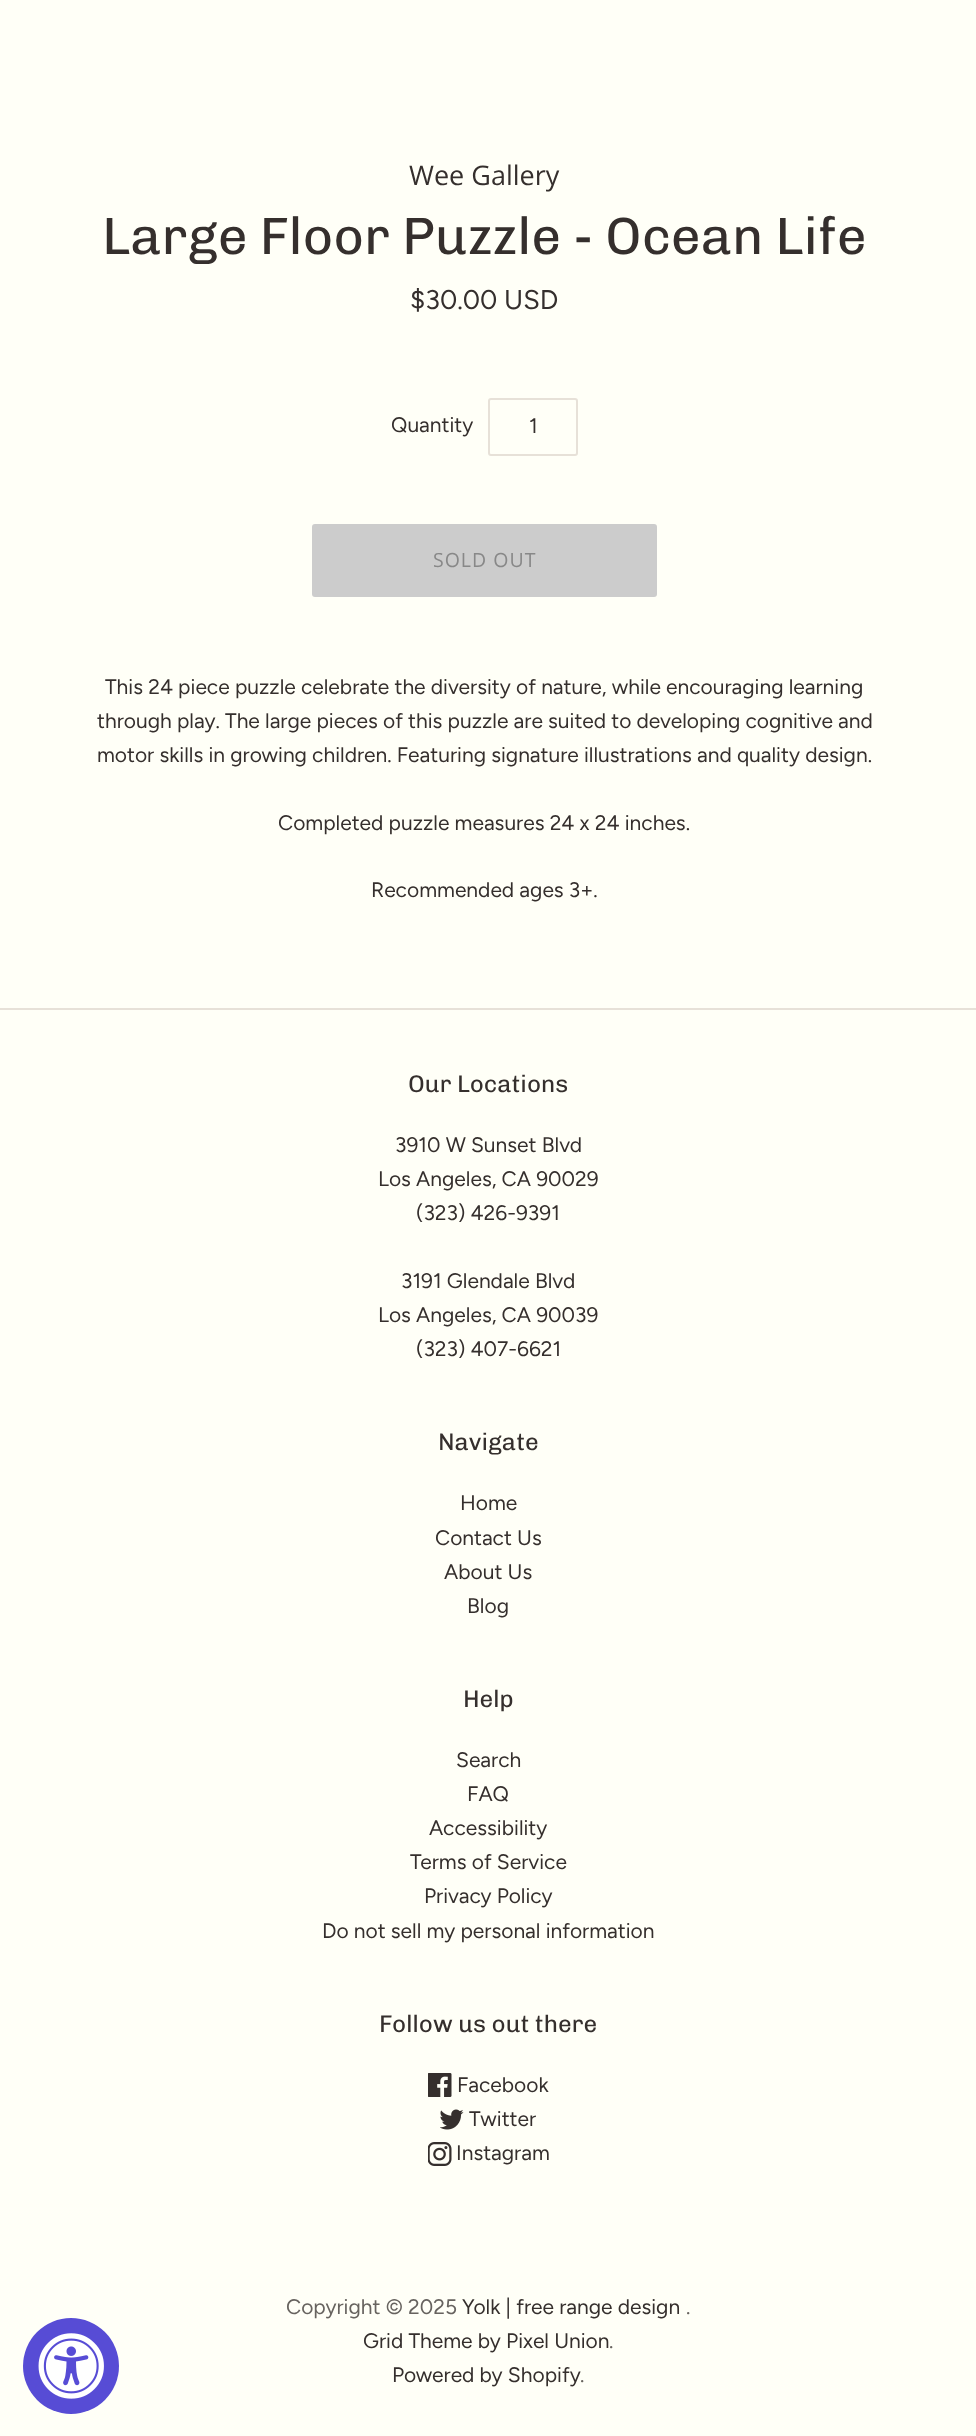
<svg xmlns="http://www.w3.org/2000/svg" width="976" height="2436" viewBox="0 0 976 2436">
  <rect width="100%" height="100%" fill="#fffff7"/>
  <text x="409" y="185" font-family="Open Sans" font-size="27" fill="#352f2d">Wee Gallery</text>
  <text x="102" y="254" font-family="Chivo" font-size="52.5" fill="#352f2d">Large Floor Puzzle - Ocean Life</text>
  <text x="410" y="309" font-family="Figtree" font-size="27" fill="#352f2d">$30.00 USD</text>
  <text x="391" y="432" font-family="Figtree" font-size="21" fill="#352f2d">Quantity</text>
  <rect x="489" y="399" width="88" height="56" rx="2" fill="none" stroke="#e7e1d8" stroke-width="2"/>
  <text x="529" y="433" font-family="Figtree" font-size="21" fill="#352f2d">1</text>
  <rect x="312" y="524" width="345" height="73" rx="3" fill="#cccccc"/>
  <text x="433" y="567" font-family="Open Sans" font-size="19.5" letter-spacing="1" fill="#888888">SOLD OUT</text>
  <text x="105" y="694" font-family="Figtree" font-size="21" fill="#352f2d">This 24 piece puzzle celebrate the diversity of nature, while encouraging learning</text>
  <text x="97" y="728" font-family="Figtree" font-size="21" fill="#352f2d">through play. The large pieces of this puzzle are suited to developing cognitive and</text>
  <text x="97" y="762" font-family="Figtree" font-size="21" fill="#352f2d">motor skills in growing children. Featuring signature illustrations and quality design.</text>
  <text x="278" y="830" font-family="Figtree" font-size="21" fill="#352f2d">Completed puzzle measures 24 x 24 inches.</text>
  <text x="371" y="897" font-family="Figtree" font-size="21" fill="#352f2d">Recommended ages 3+.</text>
  <circle cx="71" cy="2366" r="48" fill="#574cd5"/>
  <image x="38" y="2333" width="66" height="66" href="img1.png"/>
  <rect x="0" y="1008" width="976" height="2" fill="#e7e1d8"/>
  <text x="408" y="1092" font-family="Chivo" font-size="24" fill="#352f2d">Our Locations</text>
  <text x="395" y="1152" font-family="Figtree" font-size="21" fill="#352f2d">3910 W Sunset Blvd</text>
  <text x="378" y="1186" font-family="Figtree" font-size="21" fill="#352f2d">Los Angeles, CA 90029</text>
  <text x="416" y="1220" font-family="Figtree" font-size="21" fill="#352f2d">(323) 426-9391</text>
  <text x="401" y="1288" font-family="Figtree" font-size="21" fill="#352f2d">3191 Glendale Blvd</text>
  <text x="378" y="1322" font-family="Figtree" font-size="21" fill="#352f2d">Los Angeles, CA 90039</text>
  <text x="416" y="1356" font-family="Figtree" font-size="21" fill="#352f2d">(323) 407-6621</text>
  <text x="438" y="1450" font-family="Chivo" font-size="24" fill="#352f2d">Navigate</text>
  <text x="460" y="1510" font-family="Figtree" font-size="21" fill="#352f2d">Home</text>
  <text x="435" y="1545" font-family="Figtree" font-size="21" fill="#352f2d">Contact Us</text>
  <text x="444" y="1579" font-family="Figtree" font-size="21" fill="#352f2d">About Us</text>
  <text x="467" y="1613" font-family="Figtree" font-size="21" fill="#352f2d">Blog</text>
  <text x="463" y="1707" font-family="Chivo" font-size="24" fill="#352f2d">Help</text>
  <text x="456" y="1767" font-family="Figtree" font-size="21" fill="#352f2d">Search</text>
  <text x="467" y="1801" font-family="Figtree" font-size="21" fill="#352f2d">FAQ</text>
  <text x="429" y="1835" font-family="Figtree" font-size="21" fill="#352f2d">Accessibility</text>
  <text x="410" y="1869" font-family="Figtree" font-size="21" fill="#352f2d">Terms of Service</text>
  <text x="424" y="1903" font-family="Figtree" font-size="21" fill="#352f2d">Privacy Policy</text>
  <text x="322" y="1938" font-family="Figtree" font-size="21" fill="#352f2d">Do not sell my personal information</text>
  <text x="379" y="2032" font-family="Chivo" font-size="24" fill="#352f2d">Follow us out there</text>
  <image x="428" y="2073" width="24" height="24" href="img2.png"/>
  <text x="457" y="2092" font-family="Figtree" font-size="21" fill="#352f2d">Facebook</text>
  <image x="440" y="2109" width="24" height="21" href="img3.png"/>
  <text x="469" y="2126" font-family="Figtree" font-size="21" fill="#352f2d">Twitter</text>
  <image x="428" y="2142" width="24" height="24" href="img4.png"/>
  <text x="456" y="2160" font-family="Figtree" font-size="21" fill="#352f2d">Instagram</text>
  <text x="286" y="2314" font-family="Figtree" font-size="21" fill="#67635f">Copyright © 2025</text>
  <text x="462" y="2314" font-family="Figtree" font-size="21" fill="#352f2d">Yolk | free range design</text>
  <text x="686" y="2314" font-family="Figtree" font-size="21" fill="#67635f">.</text>
  <text x="363" y="2348" font-family="Figtree" font-size="21" fill="#352f2d">Grid Theme by Pixel Union</text>
  <text x="609" y="2348" font-family="Figtree" font-size="21" fill="#67635f">.</text>
  <text x="392" y="2382" font-family="Figtree" font-size="21" fill="#352f2d">Powered by Shopify</text>
  <text x="580" y="2382" font-family="Figtree" font-size="21" fill="#67635f">.</text>
</svg>
